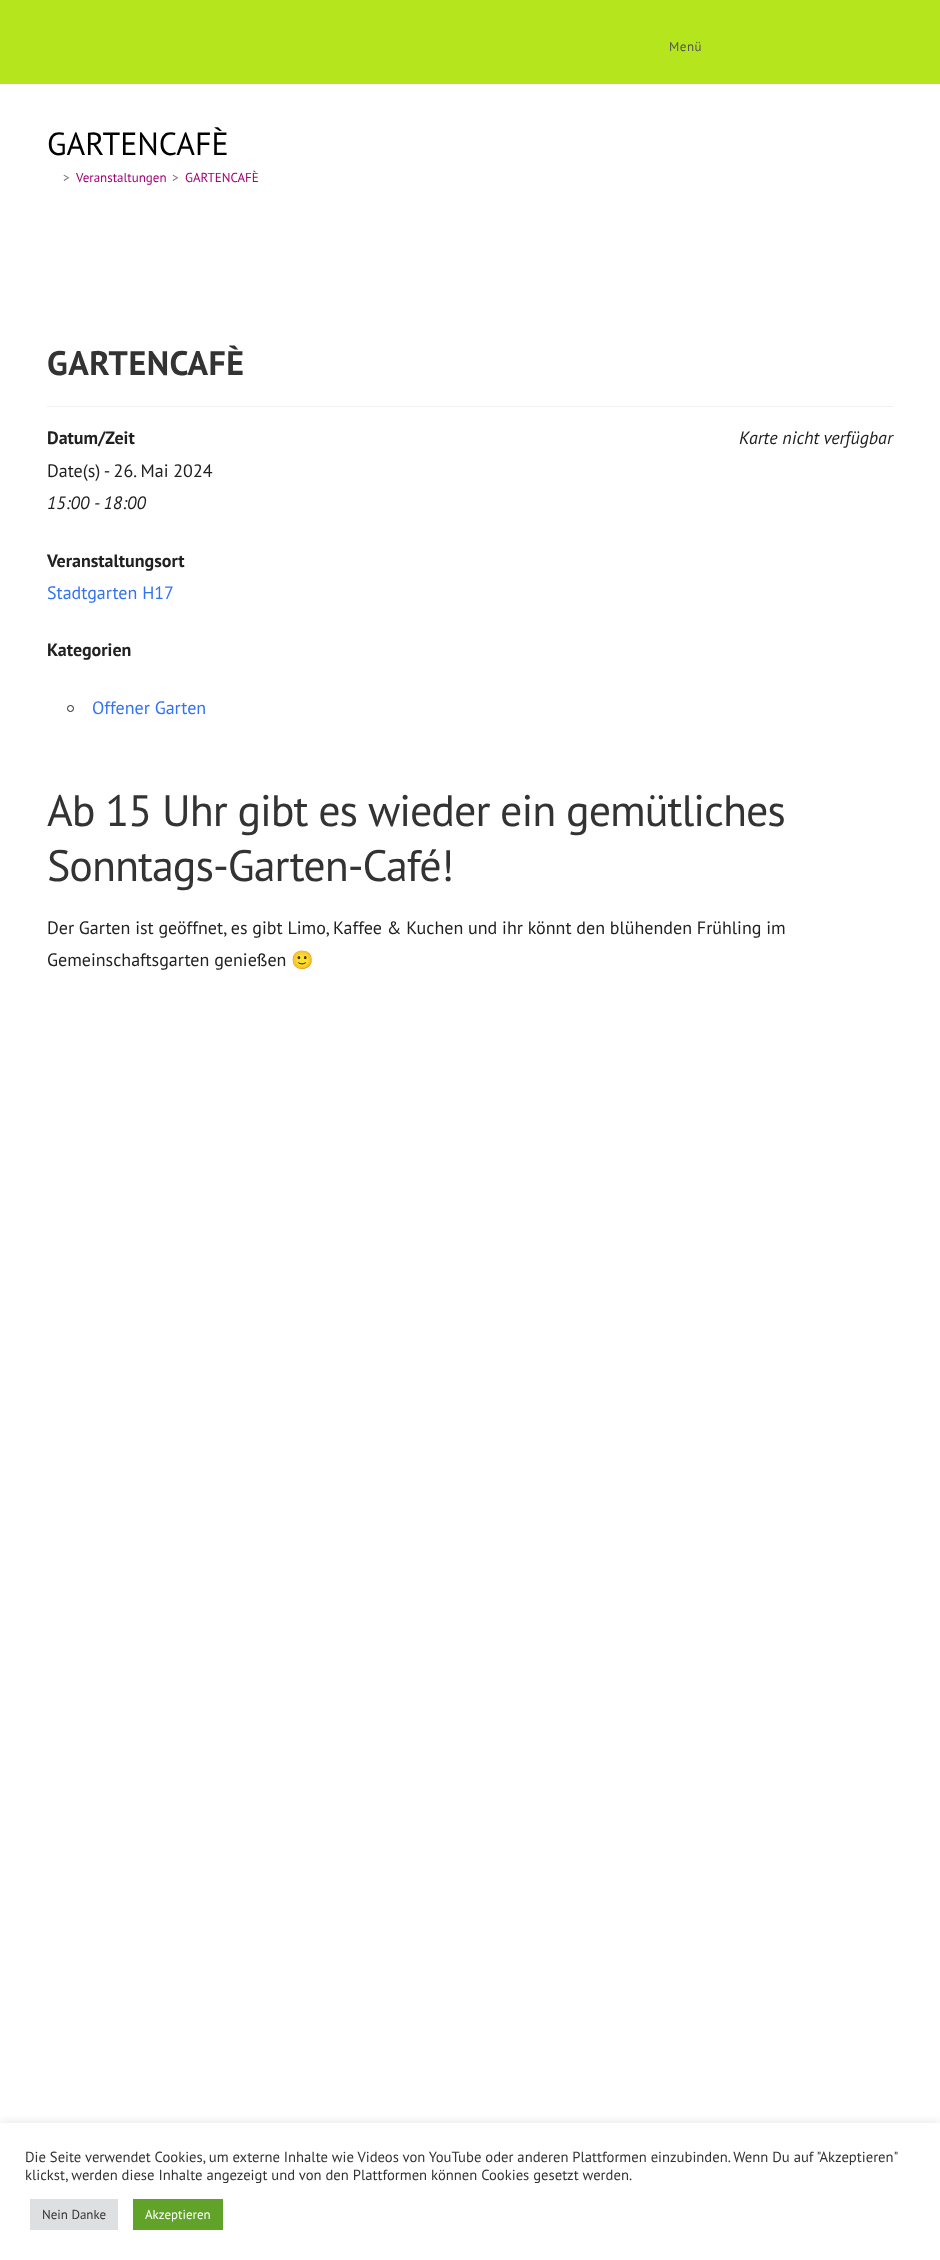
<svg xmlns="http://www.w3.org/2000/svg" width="940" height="2260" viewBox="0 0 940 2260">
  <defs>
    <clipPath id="clip1"><rect x="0" y="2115" width="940" height="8"/></clipPath>
    <filter id="blur1" x="-50%" y="-200%" width="200%" height="500%"><feGaussianBlur stdDeviation="5"/></filter>
  </defs>
  <rect width="100%" height="100%" fill="#ffffff"/>
  <rect x="0" y="0" width="940" height="84" fill="#b5e61d"/>
  <text x="669" y="51" font-family="PT Sans" font-size="13" letter-spacing="0.5" fill="#555555">Menü</text>
  <text x="47" y="155" font-family="PT Sans" font-size="32" fill="#000000">GARTENCAFÈ</text>
  <text x="63" y="182" font-family="PT Sans" font-size="13" fill="#777777">&gt;</text>
  <text x="76" y="182" font-family="PT Sans" font-size="13" fill="#a50174">Veranstaltungen</text>
  <text x="172" y="182" font-family="PT Sans" font-size="13" fill="#777777">&gt;</text>
  <text x="185" y="182" font-family="PT Sans" font-size="13" fill="#a50174">GARTENCAFÈ</text>
  <rect x="47" y="406" width="846" height="1" fill="#f1f1f1"/>
  <text x="47" y="375" font-family="PT Sans" font-size="34" font-weight="bold" letter-spacing="0.5" fill="#333333">GARTENCAFÈ</text>
  <text x="47" y="444" font-family="PT Sans" font-size="18" font-weight="bold" fill="#212121">Datum/Zeit</text>
  <text x="47" y="477" font-family="PT Sans" font-size="18" fill="#212121">Date(s) - 26. Mai 2024</text>
  <text x="47" y="509" font-family="PT Sans" font-size="18" font-style="italic" fill="#212121">15:00 - 18:00</text>
  <text x="739" y="444" font-family="PT Sans" font-size="18" font-style="italic" fill="#212121">Karte nicht verfügbar</text>
  <text x="47" y="567" font-family="PT Sans" font-size="18" font-weight="bold" fill="#212121">Veranstaltungsort</text>
  <text x="47" y="599" font-family="PT Sans" font-size="18" fill="#3372f0">Stadtgarten H17</text>
  <text x="47" y="656" font-family="PT Sans" font-size="18" font-weight="bold" fill="#212121">Kategorien</text>
  <circle cx="70.5" cy="708.5" r="3" fill="none" stroke="#212121"/>
  <text x="92" y="714" font-family="PT Sans" font-size="18" fill="#3372f0">Offener Garten</text>
  <text x="47" y="826" font-family="PT Sans" font-size="44" letter-spacing="-1" fill="#333333">Ab 15 Uhr gibt es wieder ein gemütliches</text>
  <text x="47" y="881" font-family="PT Sans" font-size="44" letter-spacing="-1" fill="#333333">Sonntags-Garten-Café!</text>
  <text x="47" y="934" font-family="PT Sans" font-size="18" fill="#212121">Der Garten ist geöffnet, es gibt Limo, Kaffee &amp; Kuchen und ihr könnt den blühenden Frühling im</text>
  <text x="47" y="966" font-family="PT Sans" font-size="18" fill="#212121">Gemeinschaftsgarten genießen</text>
  <text x="291" y="966" font-family="Noto Color Emoji" font-size="18" fill="#212121">🙂</text>
  <g clip-path="url(#clip1)">
    <rect x="0" y="2122" width="940" height="137" fill="#acabab" fill-opacity="0.3" filter="url(#blur1)"/>
  </g>
  <text x="25" y="2162" font-family="PT Sans" font-size="14.67" fill="#333333">Die Seite verwendet Cookies, um externe Inhalte wie Videos von YouTube oder anderen Plattformen einzubinden. Wenn Du auf "Akzeptieren"</text>
  <text x="25" y="2180" font-family="PT Sans" font-size="14.67" fill="#333333">klickst, werden diese Inhalte angezeigt und von den Plattformen können Cookies gesetzt werden.</text>
  <rect x="30" y="2199" width="88" height="31" fill="#dedfe0"/>
  <text x="42" y="2219" font-family="PT Sans" font-size="13" fill="#333333">Nein Danke</text>
  <rect x="133" y="2199" width="90" height="31" fill="#61a229"/>
  <text x="145" y="2219" font-family="PT Sans" font-size="13" fill="#ffffff">Akzeptieren</text>
</svg>
